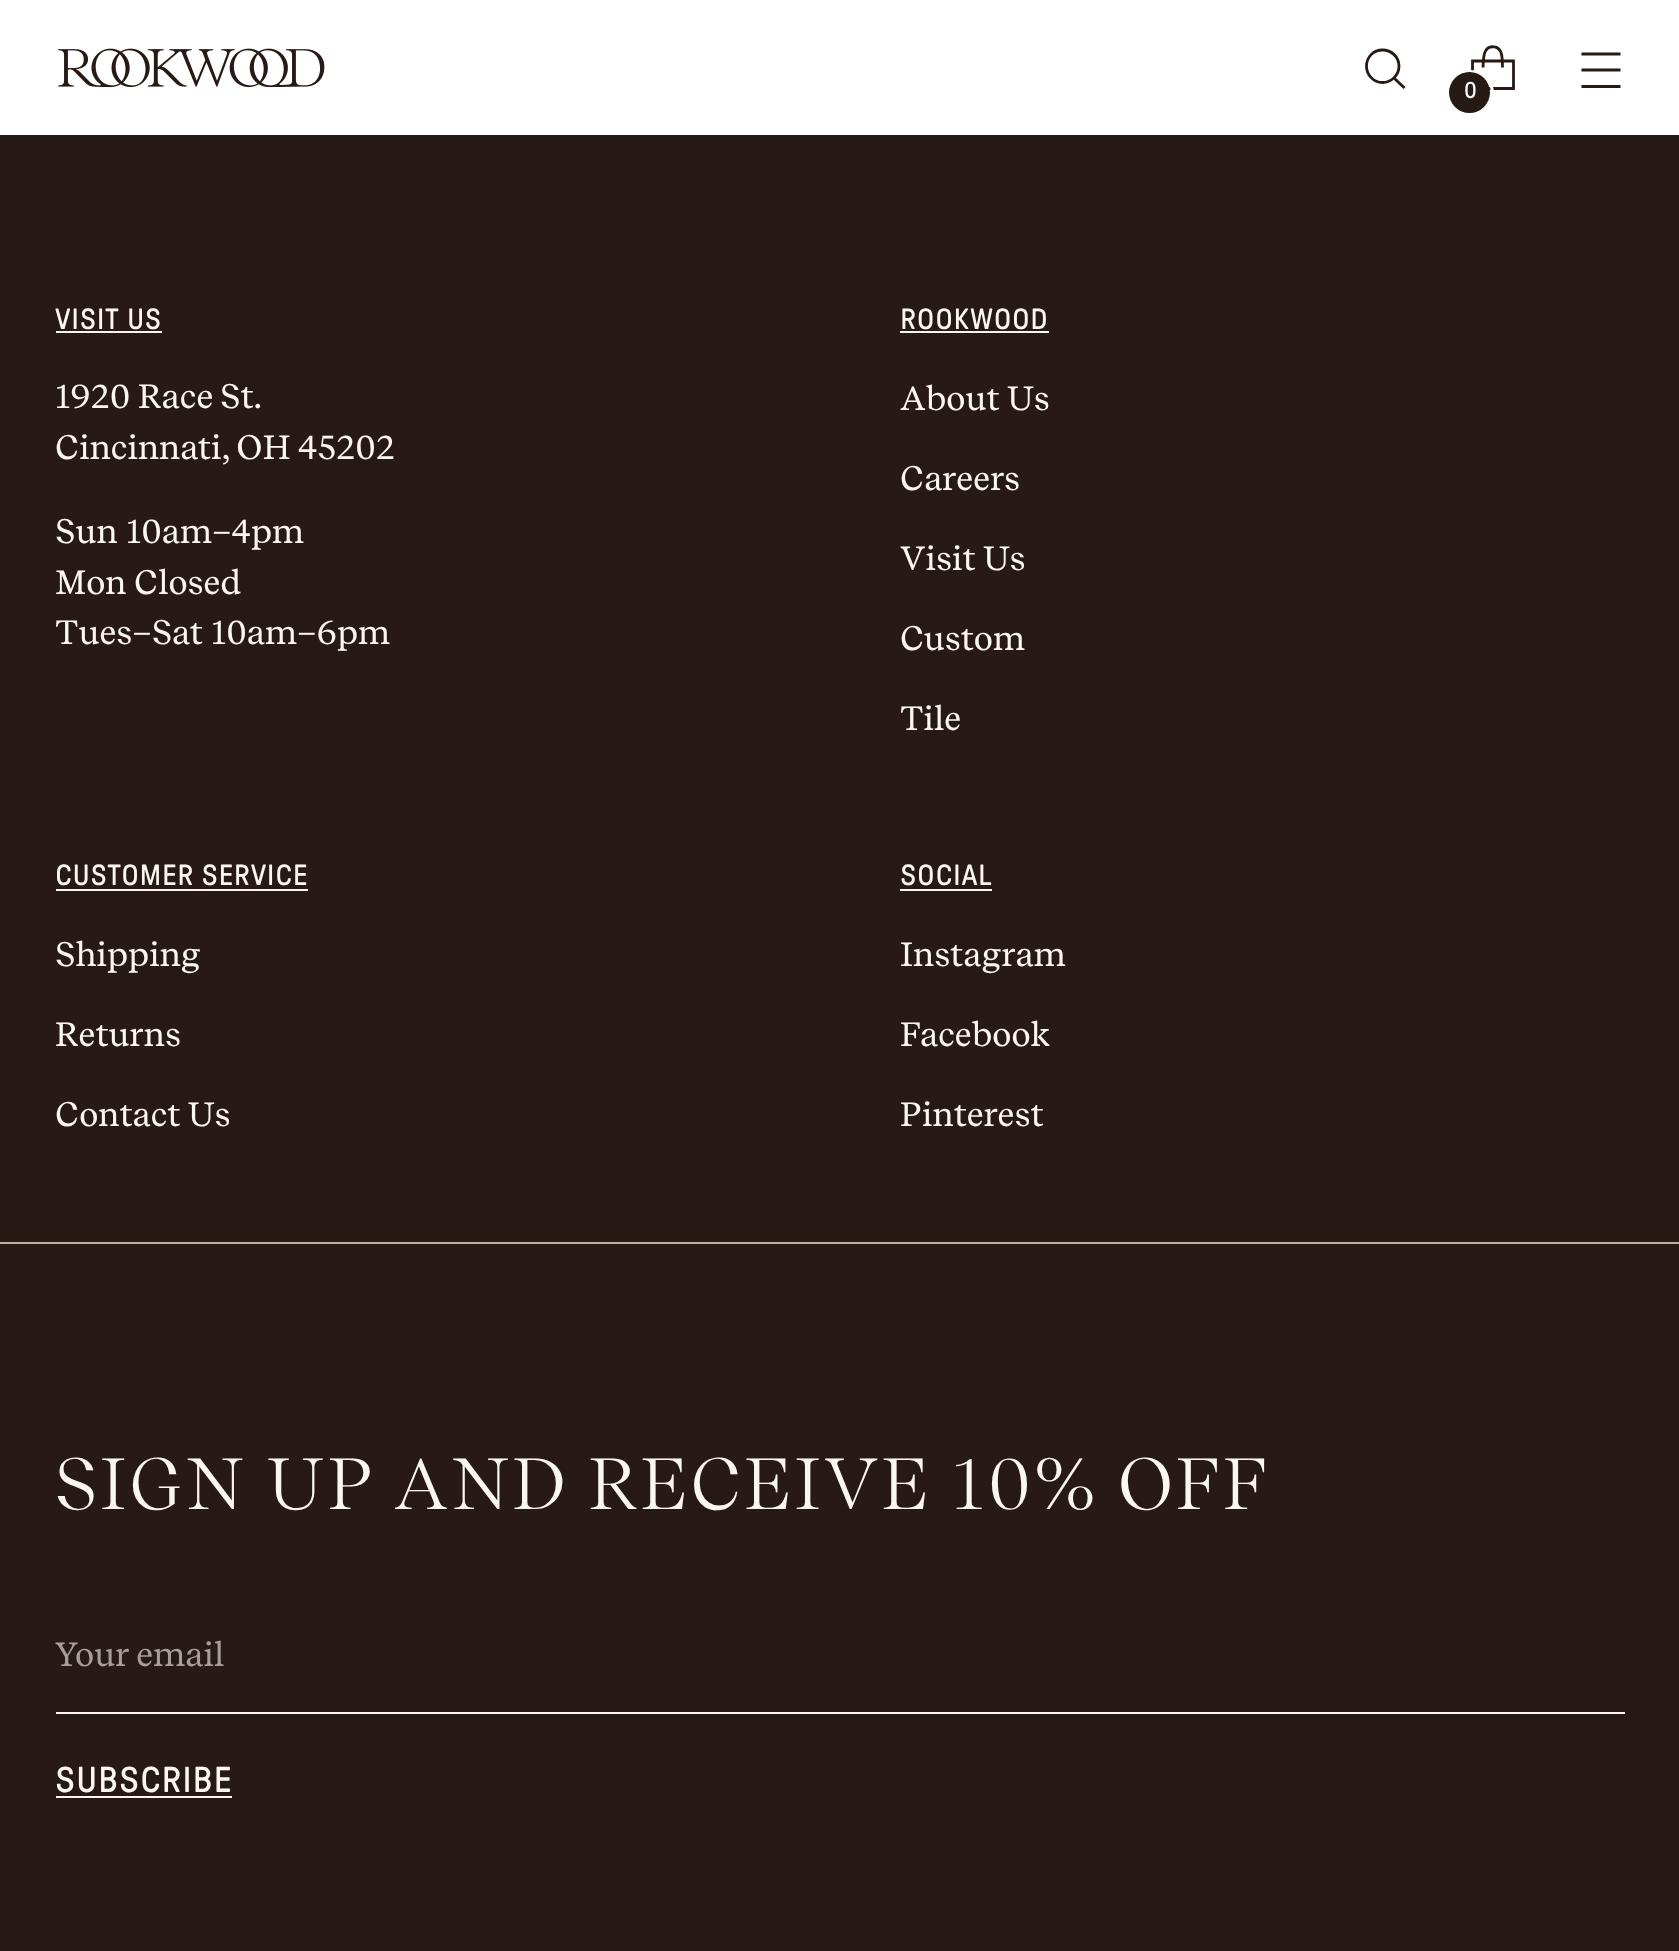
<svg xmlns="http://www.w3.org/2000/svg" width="1679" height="1951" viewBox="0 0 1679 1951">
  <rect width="100%" height="100%" fill="#271a14"/>
  <rect x="0" y="0" width="1679" height="135" fill="#ffffff"/>
  <image x="58" y="48" width="267" height="40" href="img1.png"/>
  <path d="M1382.5 82.5C1391.5 82.5 1399 75 1399 66C1399 57 1391.5 50 1382.5 50C1373.5 50 1366.5 57 1366.5 66C1366.5 75 1373.5 82.5 1382.5 82.5Z" fill="none" stroke="#271a14" stroke-width="2.8" stroke-linecap="round"/>
  <path d="M1394 78L1404.5 88" fill="none" stroke="#271a14" stroke-width="2.8"/>
  <path d="M1581.5 70H1620.5M1581.5 54H1620.5M1581.5 86.5H1620.5" fill="none" stroke="#271a14" stroke-width="2.8"/>
  <path d="M1502.5 67.5C1502.5 62.5 1502.5 57 1501 52.5C1500 50 1498 47.5 1495 47C1482.5 44.5 1483.5 60 1483 67.5" fill="none" stroke="#271a14" stroke-width="2.8" stroke-linejoin="bevel"/>
  <path d="M1513.5 88.5V61H1472.5V88.5Z" fill="none" stroke="#271a14" stroke-width="2.8"/>
  <circle cx="1470.5" cy="93.5" r="22" fill="none" stroke="#ffffff" stroke-width="3"/>
  <circle cx="1469.5" cy="92.5" r="20.5" fill="#271a14"/>
  <text x="1464" y="98" font-family="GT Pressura" font-size="23" fill="#ffffff">0</text>
  <text x="55" y="329" font-family="GT Pressura" font-size="29.25" letter-spacing="0.6" fill="#fbf6f0">VISIT US</text>
  <rect x="56" y="331" width="106" height="2" fill="#fbf6f0"/>
  <text x="55" y="408" font-family="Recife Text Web" font-size="33.75" fill="#fbf6f0">1920 Race St.</text>
  <text x="55" y="459" font-family="Recife Text Web" font-size="33.75" fill="#fbf6f0">Cincinnati, OH 45202</text>
  <text x="55" y="543" font-family="Recife Text Web" font-size="33.75" fill="#fbf6f0">Sun</text>
  <text x="126" y="543" font-family="Recife Text Web" font-size="33.75" fill="#fbf6f0">10am–4pm</text>
  <text x="55" y="594" font-family="Recife Text Web" font-size="33.75" fill="#fbf6f0">Mon</text>
  <text x="134" y="594" font-family="Recife Text Web" font-size="33.75" fill="#fbf6f0">Closed</text>
  <text x="55" y="644" font-family="Recife Text Web" font-size="33.75" fill="#fbf6f0">Tues–Sat</text>
  <text x="211" y="644" font-family="Recife Text Web" font-size="33.75" fill="#fbf6f0">10am–6pm</text>
  <text x="900" y="329" font-family="GT Pressura" font-size="29.25" letter-spacing="0.6" fill="#fbf6f0">ROOKWOOD</text>
  <rect x="900" y="331" width="149" height="2" fill="#fbf6f0"/>
  <text x="900" y="410" font-family="Recife Text Web" font-size="33.75" fill="#fbf6f0">About Us</text>
  <text x="900" y="490" font-family="Recife Text Web" font-size="33.75" fill="#fbf6f0">Careers</text>
  <text x="900" y="570" font-family="Recife Text Web" font-size="33.75" fill="#fbf6f0">Visit Us</text>
  <text x="900" y="650" font-family="Recife Text Web" font-size="33.75" fill="#fbf6f0">Custom</text>
  <text x="900" y="730" font-family="Recife Text Web" font-size="33.75" fill="#fbf6f0">Tile</text>
  <text x="55" y="885" font-family="GT Pressura" font-size="29.25" letter-spacing="0.6" fill="#fbf6f0">CUSTOMER SERVICE</text>
  <rect x="56" y="889" width="252" height="2" fill="#fbf6f0"/>
  <text x="55" y="966" font-family="Recife Text Web" font-size="33.75" fill="#fbf6f0">Shipping</text>
  <text x="55" y="1046" font-family="Recife Text Web" font-size="33.75" fill="#fbf6f0">Returns</text>
  <text x="55" y="1126" font-family="Recife Text Web" font-size="33.75" fill="#fbf6f0">Contact Us</text>
  <text x="900" y="885" font-family="GT Pressura" font-size="29.25" letter-spacing="0.6" fill="#fbf6f0">SOCIAL</text>
  <rect x="900" y="889" width="92" height="2" fill="#fbf6f0"/>
  <text x="900" y="966" font-family="Recife Text Web" font-size="33.75" fill="#fbf6f0">Instagram</text>
  <text x="900" y="1046" font-family="Recife Text Web" font-size="33.75" fill="#fbf6f0">Facebook</text>
  <text x="900" y="1126" font-family="Recife Text Web" font-size="33.75" fill="#fbf6f0">Pinterest</text>
  <rect x="0" y="1242" width="1679" height="2" fill="#b7b1a4"/>
  <text x="55" y="1509" font-family="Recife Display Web" font-size="72" letter-spacing="3.6" fill="#fbf6f0">SIGN UP AND RECEIVE 10% OFF</text>
  <rect x="56" y="1712" width="1569" height="2" fill="#fbf6f0"/>
  <text x="55" y="1666" font-family="Recife Text Web" font-size="33.75" fill="#a69e98">Your email</text>
  <text x="55" y="1792" font-family="GT Pressura" font-size="36" letter-spacing="0.75" fill="#fbf6f0">SUBSCRIBE</text>
  <rect x="56" y="1796" width="176" height="2" fill="#fbf6f0"/>
</svg>
